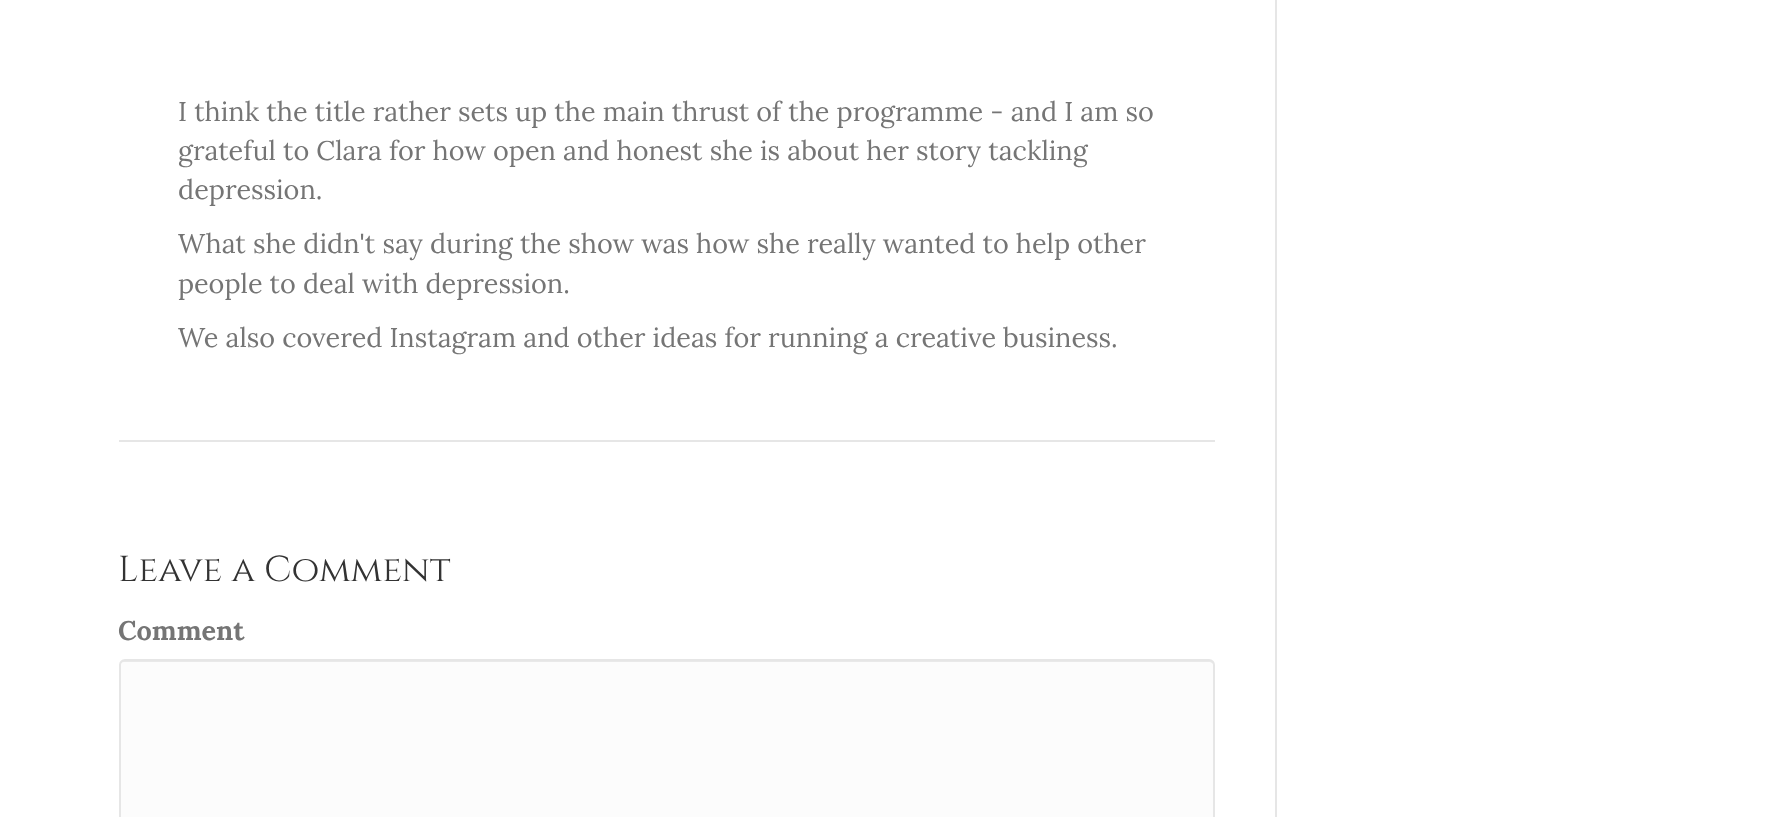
<svg xmlns="http://www.w3.org/2000/svg" width="1765" height="817" viewBox="0 0 1765 817">
  <rect width="100%" height="100%" fill="#ffffff"/>
  <rect x="1275" y="0" width="2" height="817" fill="#e6e6e6"/>
  <text x="178" y="121" font-family="Lora" font-size="27" fill="#757575">I think the title rather sets up the main thrust of the programme - and I am so</text>
  <text x="178" y="160" font-family="Lora" font-size="27" fill="#757575">grateful to Clara for how open and honest she is about her story tackling</text>
  <text x="178" y="199" font-family="Lora" font-size="27" fill="#757575">depression.</text>
  <text x="178" y="253" font-family="Lora" font-size="27" fill="#757575">What she didn't say during the show was how she really wanted to help other</text>
  <text x="178" y="293" font-family="Lora" font-size="27" fill="#757575">people to deal with depression.</text>
  <text x="178" y="347" font-family="Lora" font-size="27" fill="#757575">We also covered Instagram and other ideas for running a creative business.</text>
  <rect x="119" y="440" width="1096" height="2" fill="#e6e6e6"/>
  <text x="118" y="581" font-family="Cinzel" font-size="36" fill="#333333">Leave a Comment</text>
  <text x="118" y="640" font-family="Lora" font-size="27" font-weight="bold" fill="#757575">Comment</text>
  <rect x="119" y="659" width="1096" height="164" rx="6" fill="#fcfcfc"/>
  <path d="M124 662H1209C1211 662 1214 664 1214 666C1214 663 1212 660 1209 660H125C122 660 120 663 120 666C120 664 122 662 124 662Z" fill="#e9e9e9"/>
  <rect x="120" y="660" width="1094" height="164" rx="5" fill="none" stroke="#e6e6e6" stroke-width="2"/>
</svg>
